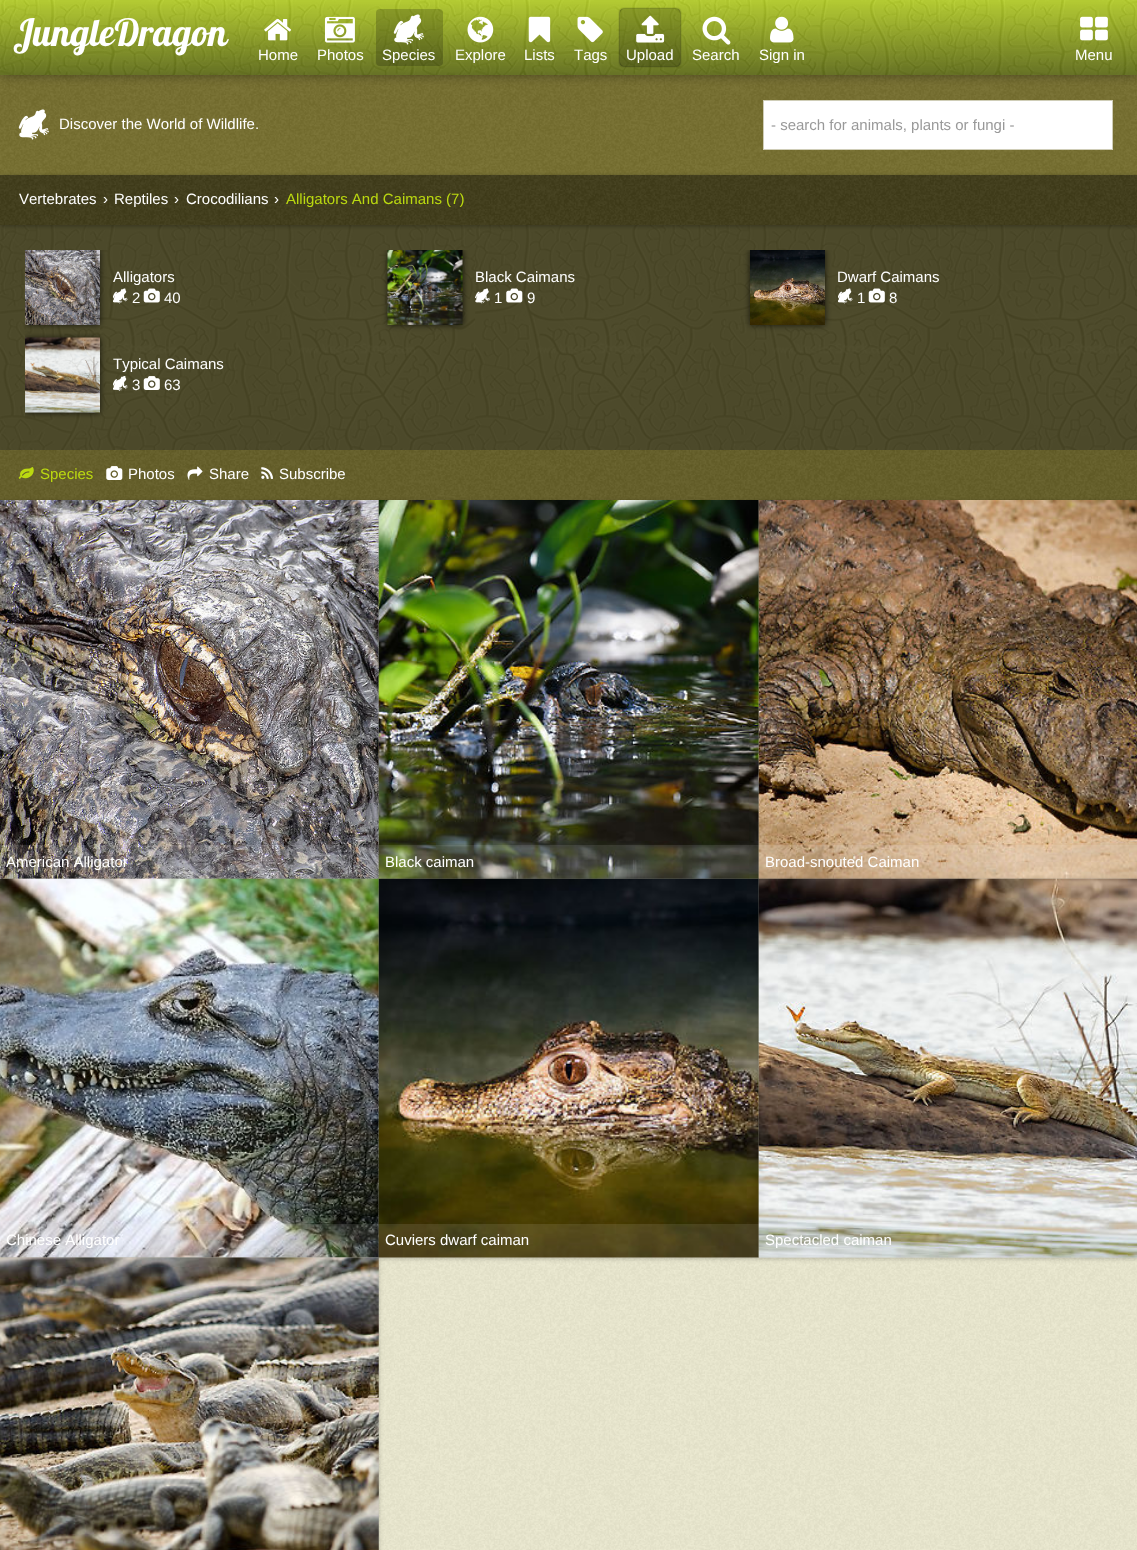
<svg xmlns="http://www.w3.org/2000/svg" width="1137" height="1550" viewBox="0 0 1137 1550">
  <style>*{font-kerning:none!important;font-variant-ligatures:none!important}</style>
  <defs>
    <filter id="blur1" x="-50%" y="-200%" width="200%" height="500%"><feGaussianBlur stdDeviation="6"/></filter>
    <clipPath id="clip1"><path d="M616 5H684V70H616ZM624 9H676C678 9 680 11 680 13V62C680 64 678 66 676 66H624C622 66 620 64 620 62V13C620 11 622 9 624 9Z" clip-rule="evenodd"/></clipPath>
    <filter id="blur2" x="-50%" y="-200%" width="200%" height="500%"><feGaussianBlur stdDeviation="1"/></filter>
    <filter id="blur3" x="-50%" y="-200%" width="200%" height="500%"><feGaussianBlur stdDeviation="2"/></filter>
    <clipPath id="clip2"><rect x="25" y="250" width="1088" height="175"/></clipPath>
    <filter id="blur4" x="-50%" y="-200%" width="200%" height="500%"><feGaussianBlur stdDeviation="3"/></filter>
  </defs>
  <rect width="100%" height="100%" fill="#edead1"/>
  <image x="0" y="500" width="1137" height="1050" href="img1.png"/>
  <rect x="0" y="75" width="1137" height="100" fill="#776f2f"/>
  <image x="0" y="75" width="1137" height="100" href="img13.png"/>
  <rect x="0" y="0" width="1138" height="75" fill="#000000" fill-opacity="0.4" filter="url(#blur1)"/>
  <rect x="0" y="0" width="1137" height="75" fill="#bbd910"/>
  <image x="0" y="0" width="1137" height="75" href="img2.png"/>
  <text x="13" y="46" font-family="Lobster" font-size="37.5" fill="#ffffff">JungleDragon</text>
  <image x="264" y="18" width="27" height="23" href="img3.png"/>
  <text x="258" y="60" font-family="Liberation Sans" font-size="15" fill="#ffffff">Home</text>
  <image x="324" y="16" width="31" height="27" href="img4.png"/>
  <text x="317" y="60" font-family="Liberation Sans" font-size="15" fill="#ffffff">Photos</text>
  <rect x="376" y="9" width="67" height="57" rx="4" fill="#000000" fill-opacity="0.2"/>
  <image x="393" y="14" width="31" height="31" href="img5.png"/>
  <text x="382" y="60" font-family="Liberation Sans" font-size="15" fill="#ffffff">Species</text>
  <image x="467" y="16" width="27" height="27" href="img6.png"/>
  <text x="455" y="60" font-family="Liberation Sans" font-size="15" fill="#ffffff">Explore</text>
  <image x="528" y="16" width="23" height="27" href="img7.png"/>
  <text x="524" y="60" font-family="Liberation Sans" font-size="15" fill="#ffffff">Lists</text>
  <image x="577" y="16" width="26" height="27" href="img8.png"/>
  <text x="574" y="60" font-family="Liberation Sans" font-size="15" fill="#ffffff">Tags</text>
  <g clip-path="url(#clip1)">
    <rect x="620" y="9" width="60" height="57" rx="4" fill="#000000" fill-opacity="0.8" filter="url(#blur2)"/>
  </g>
  <rect x="620" y="9" width="60" height="57" rx="4" fill="#000000" fill-opacity="0.2"/>
  <image x="636" y="15" width="29" height="28" href="img9.png"/>
  <text x="626" y="60" font-family="Liberation Sans" font-size="15" fill="#ffffff">Upload</text>
  <image x="702" y="16" width="29" height="29" href="img10.png"/>
  <text x="692" y="60" font-family="Liberation Sans" font-size="15" fill="#ffffff">Search</text>
  <image x="770" y="16" width="24" height="27" href="img11.png"/>
  <text x="759" y="60" font-family="Liberation Sans" font-size="15" fill="#ffffff">Sign in</text>
  <image x="1080" y="16" width="28" height="25" href="img12.png"/>
  <text x="1075" y="60" font-family="Liberation Sans" font-size="15" fill="#ffffff">Menu</text>
  <image x="18" y="109" width="31" height="31" href="img14.png"/>
  <text x="59" y="129" font-family="Liberation Sans" font-size="15" fill="#ffffff">Discover the World of Wildlife.</text>
  <rect x="763.5" y="100.5" width="349" height="49" fill="#ffffff" stroke="#cfcdb7"/>
  <text x="771" y="130" font-family="Liberation Sans" font-size="15" fill="#999999">- search for animals, plants or fungi -</text>
  <rect x="0" y="225" width="1137" height="225" fill="#403c19"/>
  <image x="0" y="225" width="1137" height="225" href="img16.png"/>
  <rect x="0" y="176" width="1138" height="50" fill="#000000" fill-opacity="0.3" filter="url(#blur3)"/>
  <rect x="0" y="175" width="1137" height="50" fill="#403c19"/>
  <image x="0" y="175" width="1137" height="50" href="img15.png"/>
  <text x="19" y="204" font-family="Liberation Sans" font-size="15" fill="#ffffff">Vertebrates</text>
  <text x="103" y="204" font-family="Liberation Sans" font-size="15" fill="#ffffff">›</text>
  <text x="114" y="204" font-family="Liberation Sans" font-size="15" fill="#ffffff">Reptiles</text>
  <text x="174" y="204" font-family="Liberation Sans" font-size="15" fill="#ffffff">›</text>
  <text x="186" y="204" font-family="Liberation Sans" font-size="15" fill="#ffffff">Crocodilians</text>
  <text x="274" y="204" font-family="Liberation Sans" font-size="15" fill="#ffffff">›</text>
  <text x="286" y="204" font-family="Liberation Sans" font-size="15" fill="#bbd910">Alligators And Caimans (7)</text>
  <g clip-path="url(#clip2)">
    <rect x="25" y="250" width="75" height="75" fill="#000000" fill-opacity="0.7" filter="url(#blur4)"/>
  </g>
  <image x="25" y="250" width="75" height="75" href="img17.png"/>
  <text x="113" y="282" font-family="Liberation Sans" font-size="15" fill="#ffffff">Alligators</text>
  <image x="113" y="288" width="15" height="16" href="img18.png"/>
  <text x="132" y="303" font-family="Liberation Sans" font-size="15" fill="#ffffff">2</text>
  <image x="143" y="288" width="17" height="15" href="img19.png"/>
  <text x="164" y="303" font-family="Liberation Sans" font-size="15" fill="#ffffff">40</text>
  <g clip-path="url(#clip2)">
    <rect x="388" y="250" width="75" height="75" fill="#000000" fill-opacity="0.7" filter="url(#blur4)"/>
  </g>
  <image x="387" y="250" width="76" height="75" href="img20.png"/>
  <text x="475" y="282" font-family="Liberation Sans" font-size="15" fill="#ffffff">Black Caimans</text>
  <image x="475" y="288" width="15" height="16" href="img21.png"/>
  <text x="494" y="303" font-family="Liberation Sans" font-size="15" fill="#ffffff">1</text>
  <image x="506" y="288" width="17" height="15" href="img22.png"/>
  <text x="527" y="303" font-family="Liberation Sans" font-size="15" fill="#ffffff">9</text>
  <g clip-path="url(#clip2)">
    <rect x="750" y="250" width="75" height="75" fill="#000000" fill-opacity="0.7" filter="url(#blur4)"/>
  </g>
  <image x="750" y="250" width="75" height="75" href="img23.png"/>
  <text x="837" y="282" font-family="Liberation Sans" font-size="15" fill="#ffffff">Dwarf Caimans</text>
  <image x="838" y="288" width="15" height="16" href="img24.png"/>
  <text x="857" y="303" font-family="Liberation Sans" font-size="15" fill="#ffffff">1</text>
  <image x="868" y="288" width="17" height="15" href="img25.png"/>
  <text x="889" y="303" font-family="Liberation Sans" font-size="15" fill="#ffffff">8</text>
  <g clip-path="url(#clip2)">
    <rect x="25" y="338" width="75" height="75" fill="#000000" fill-opacity="0.7" filter="url(#blur4)"/>
  </g>
  <image x="25" y="337" width="75" height="76" href="img26.png"/>
  <text x="113" y="369" font-family="Liberation Sans" font-size="15" fill="#ffffff">Typical Caimans</text>
  <image x="113" y="376" width="15" height="15" href="img27.png"/>
  <text x="132" y="390" font-family="Liberation Sans" font-size="15" fill="#ffffff">3</text>
  <image x="143" y="376" width="17" height="14" href="img28.png"/>
  <text x="164" y="390" font-family="Liberation Sans" font-size="15" fill="#ffffff">63</text>
  <rect x="0" y="450" width="1137" height="50" fill="#655e27"/>
  <image x="0" y="450" width="1137" height="50" href="img29.png"/>
  <image x="18" y="467" width="16" height="12" href="img30.png"/>
  <text x="40" y="479" font-family="Liberation Sans" font-size="15" fill="#bbd910">Species</text>
  <image x="106" y="466" width="17" height="14" href="img31.png"/>
  <text x="128" y="479" font-family="Liberation Sans" font-size="15" fill="#ffffff">Photos</text>
  <image x="187" y="466" width="16" height="14" href="img32.png"/>
  <text x="209" y="479" font-family="Liberation Sans" font-size="15" fill="#ffffff">Share</text>
  <image x="261" y="467" width="12" height="12" href="img33.png"/>
  <text x="279" y="479" font-family="Liberation Sans" font-size="15" fill="#ffffff">Subscribe</text>
  <rect x="0" y="501" width="379" height="379" fill="#000000" fill-opacity="0.2" filter="url(#blur3)"/>
  <image x="0" y="500" width="379" height="379" href="img34.png"/>
  <image x="0" y="500" width="379" height="379" href="img35.png"/>
  <rect x="0" y="845" width="379" height="34" fill="#ffffff" fill-opacity="0.1"/>
  <text x="6" y="867" font-family="Liberation Sans" font-size="15" fill="#ffffff">American Alligator</text>
  <rect x="379" y="501" width="380" height="379" fill="#000000" fill-opacity="0.2" filter="url(#blur3)"/>
  <image x="378" y="500" width="381" height="379" href="img36.png"/>
  <image x="378" y="500" width="381" height="379" href="img37.png"/>
  <rect x="379" y="845" width="380" height="34" fill="#ffffff" fill-opacity="0.1"/>
  <text x="385" y="867" font-family="Liberation Sans" font-size="15" fill="#ffffff">Black caiman</text>
  <rect x="759" y="501" width="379" height="379" fill="#000000" fill-opacity="0.2" filter="url(#blur3)"/>
  <image x="758" y="500" width="379" height="379" href="img38.png"/>
  <image x="758" y="500" width="379" height="379" href="img39.png"/>
  <rect x="759" y="845" width="378" height="34" fill="#ffffff" fill-opacity="0.1"/>
  <text x="765" y="867" font-family="Liberation Sans" font-size="15" fill="#ffffff">Broad-snouted Caiman</text>
  <rect x="0" y="880" width="379" height="379" fill="#000000" fill-opacity="0.2" filter="url(#blur3)"/>
  <rect x="0" y="879" width="379" height="379" fill="#ffffff" fill-opacity="0.1"/>
  <image x="0" y="879" width="379" height="379" href="img40.png"/>
  <image x="0" y="878" width="379" height="380" href="img41.png"/>
  <rect x="0" y="1224" width="379" height="34" fill="#ffffff" fill-opacity="0.1"/>
  <text x="6" y="1245" font-family="Liberation Sans" font-size="15" fill="#ffffff">Chinese Alligator</text>
  <rect x="379" y="880" width="380" height="379" fill="#000000" fill-opacity="0.2" filter="url(#blur3)"/>
  <rect x="379" y="879" width="380" height="379" fill="#ffffff" fill-opacity="0.1"/>
  <image x="378" y="879" width="381" height="379" href="img42.png"/>
  <image x="378" y="878" width="381" height="380" href="img43.png"/>
  <rect x="379" y="1224" width="380" height="34" fill="#ffffff" fill-opacity="0.1"/>
  <text x="385" y="1245" font-family="Liberation Sans" font-size="15" fill="#ffffff">Cuviers dwarf caiman</text>
  <rect x="759" y="880" width="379" height="379" fill="#000000" fill-opacity="0.2" filter="url(#blur3)"/>
  <rect x="759" y="1257" width="378" height="1" fill="#ffffff" fill-opacity="0.1"/>
  <image x="759" y="1257" width="378" height="1" href="img44.png"/>
  <image x="758" y="878" width="379" height="380" href="img45.png"/>
  <rect x="759" y="1224" width="378" height="34" fill="#ffffff" fill-opacity="0.1"/>
  <text x="765" y="1245" font-family="Liberation Sans" font-size="15" fill="#ffffff">Spectacled caiman</text>
  <rect x="0" y="1259" width="379" height="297" fill="#000000" fill-opacity="0.2" filter="url(#blur3)"/>
  <image x="0" y="1257" width="379" height="293" href="img46.png"/>
  <image x="0" y="1257" width="379" height="293" href="img47.png"/>
</svg>
